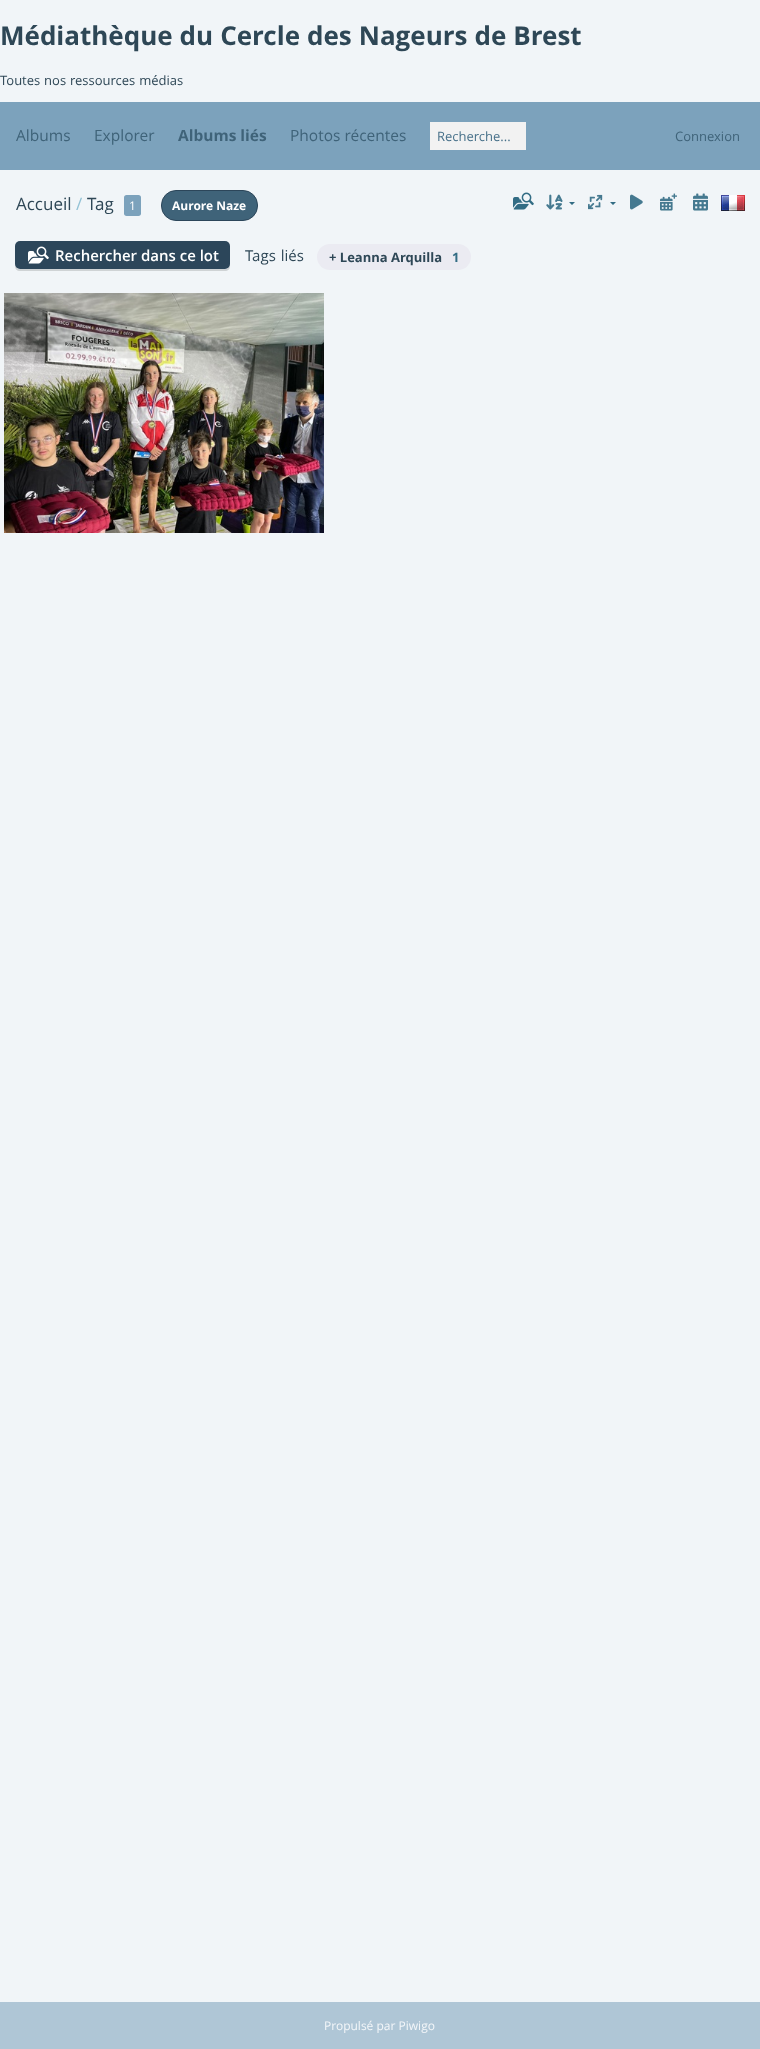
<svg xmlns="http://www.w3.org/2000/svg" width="760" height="2049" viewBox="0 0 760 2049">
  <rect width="100%" height="100%" fill="#f1f5f8"/>
  <text x="0" y="45" word-spacing="0.25" font-family="Open Sans" font-size="26" font-weight="bold" fill="#2e4756">Médiathèque du Cercle des Nageurs de Brest</text>
  <text x="0" y="85" word-spacing="0.5" font-family="Open Sans" font-size="13" fill="#2e4756">Toutes nos ressources médias</text>
  <rect x="0" y="102" width="760" height="68" fill="#7ca2bc"/>
  <text x="16" y="141" font-family="Open Sans" font-size="15.5" fill="#3f6379">Albums</text>
  <text x="94" y="141" font-family="Open Sans" font-size="15.5" fill="#3f6379">Explorer</text>
  <text x="178" y="141" font-family="Open Sans" font-size="15.5" font-weight="bold" fill="#3f6379">Albums liés</text>
  <text x="290" y="141" font-family="Open Sans" font-size="15.5" fill="#3f6379">Photos récentes</text>
  <rect x="430" y="122" width="96" height="28" fill="#f2f2f2"/>
  <text x="437" y="141" font-family="Open Sans" font-size="13" fill="#48718a">Recherche...</text>
  <text x="675" y="141" font-family="Open Sans" font-size="13" fill="#3f6379">Connexion</text>
  <text x="16" y="210" font-family="Open Sans" font-size="17" fill="#2e4756">Accueil</text>
  <text x="76" y="210" font-family="Open Sans" font-size="17" fill="#93c2d6">/</text>
  <text x="87" y="210" font-family="Open Sans" font-size="17" fill="#2e4756">Tag</text>
  <rect x="129" y="195" width="7" height="21" fill="#7ca2bc"/>
  <text x="129" y="210" font-family="Open Sans" font-size="12" fill="#ffffff">1</text>
  <path d="M126.5 195H129V216H126.5C125 216 124 215 124 213.5V197.5C124 196 125 195 126.5 195Z" fill="#7ca2bc"/>
  <path d="M136 195H138.5C140 195 141 196 141 197.5V213.5C141 215 140 216 138.5 216H136Z" fill="#7ca2bc"/>
  <rect x="161.5" y="190.5" width="96" height="30" rx="14.5" fill="#3f6379" stroke="#2c465a"/>
  <text x="172" y="210" font-family="Open Sans" font-size="12" font-weight="bold" fill="#ffffff">Aurore Naze</text>
  <image x="513" y="192" width="21" height="18" href="img1.png"/>
  <image x="546" y="194" width="17" height="16" href="img2.png"/>
  <path d="M569 202H575L572 205ZM610 202H616L613 205Z" fill="#326c84"/>
  <image x="660" y="193" width="17" height="18" href="img3.png"/>
  <image x="693" y="193" width="15" height="18" href="img4.png"/>
  <image x="588" y="194" width="15" height="16" href="img5.png"/>
  <image x="630" y="194" width="13" height="16" href="img6.png"/>
  <image x="721" y="195" width="24" height="16" href="img7.png"/>
  <path d="M15 264V266C15 269 17 271 20 271H225C228 271 230 269 230 266V264C230 267 228 269 225 269H20C17 269 15 267 15 264Z" fill="#cfd3d5"/>
  <rect x="15" y="241" width="215" height="28" rx="5" fill="#2c465a"/>
  <image x="28" y="246" width="21" height="18" href="img8.png"/>
  <text x="55" y="261" font-family="Open Sans" font-size="15" font-weight="600" fill="#ffffff">Rechercher dans ce lot</text>
  <text x="245" y="261" word-spacing="1" font-family="Open Sans" font-size="15" fill="#2e4756">Tags liés</text>
  <rect x="317" y="244" width="154" height="26" rx="13" fill="#ebebf2"/>
  <text x="329" y="262" font-family="Open Sans" font-size="13" font-weight="bold" fill="#2e4756">+ Leanna Arquilla</text>
  <text x="452" y="262" font-family="Open Sans" font-size="13" font-weight="bold" fill="#326c84">1</text>
  <image x="4" y="293" width="320" height="240" href="img9.png"/>
  <rect x="0" y="2002" width="760" height="47" fill="#afc6d6"/>
  <text x="324" y="2030" font-family="Open Sans" font-size="12" fill="#f3f6f9">Propulsé par Piwigo</text>
</svg>
